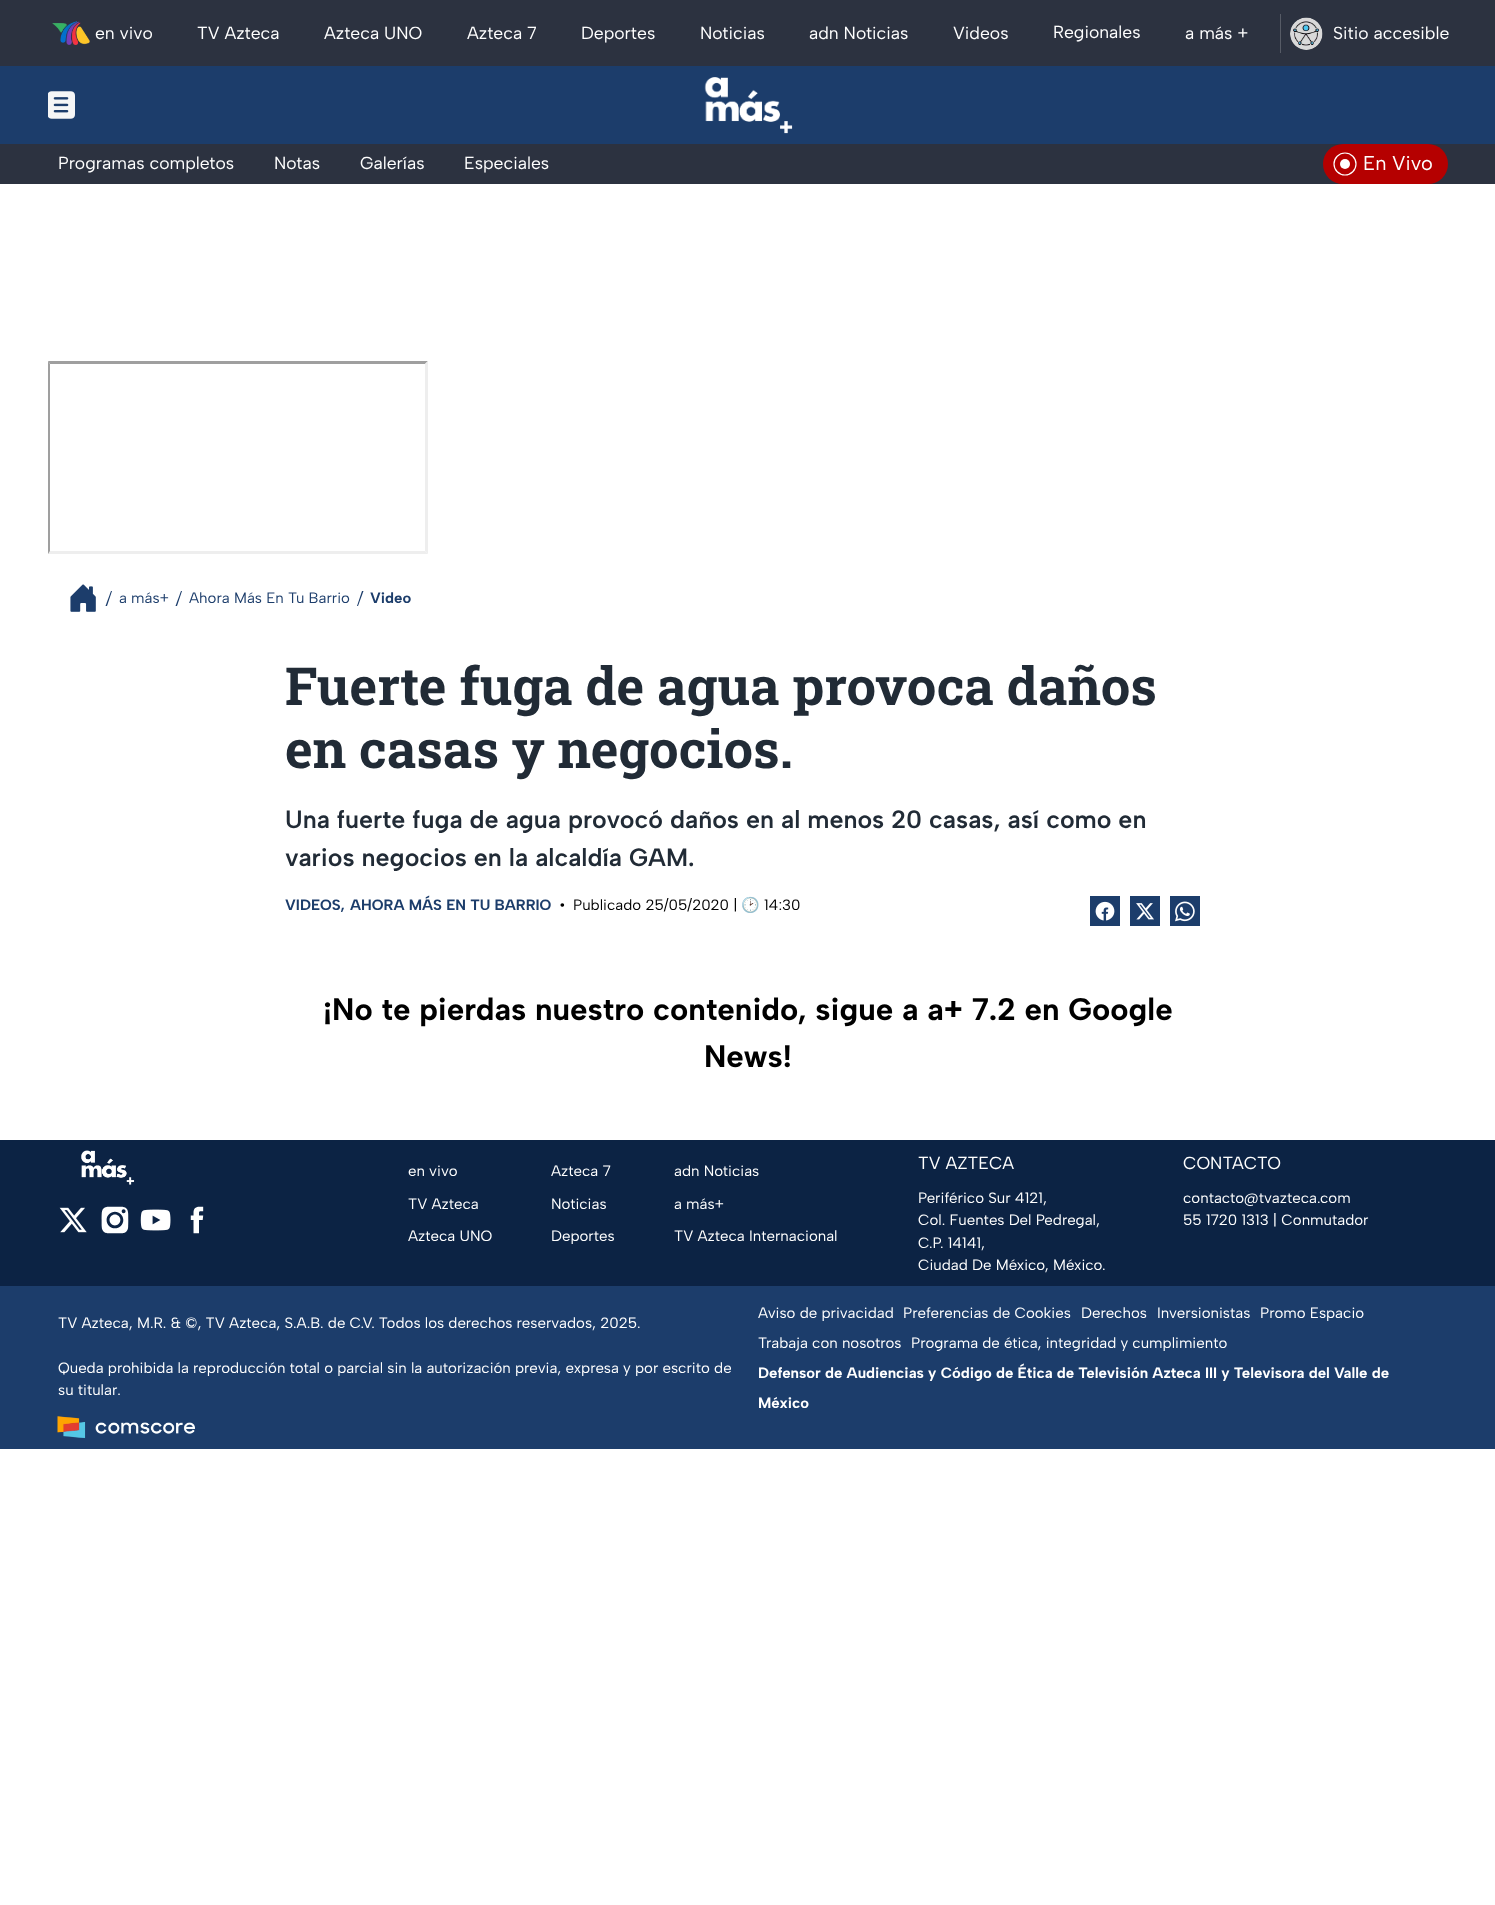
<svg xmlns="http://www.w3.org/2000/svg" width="1495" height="1905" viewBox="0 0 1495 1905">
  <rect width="100%" height="100%" fill="#ffffff"/>
  <rect x="0" y="0" width="1495" height="66" fill="#2c3240"/>
  <image x="52" y="21" width="38" height="24" href="img1.png"/>
  <text x="95" y="39" font-family="Albert Sans" font-size="17.5" fill="#ffffff">en vivo</text>
  <text x="197" y="39" font-family="Albert Sans" font-size="17.5" fill="#ffffff">TV Azteca</text>
  <text x="324" y="39" font-family="Albert Sans" font-size="17.5" fill="#ffffff">Azteca UNO</text>
  <text x="467" y="39" font-family="Albert Sans" font-size="17.5" fill="#ffffff">Azteca 7</text>
  <text x="581" y="39" font-family="Albert Sans" font-size="17.5" fill="#ffffff">Deportes</text>
  <text x="700" y="39" font-family="Albert Sans" font-size="17.5" fill="#ffffff">Noticias</text>
  <text x="809" y="39" font-family="Albert Sans" font-size="17.5" fill="#ffffff">adn Noticias</text>
  <text x="953" y="39" font-family="Albert Sans" font-size="17.5" fill="#ffffff">Videos</text>
  <text x="1053" y="38" font-family="Albert Sans" font-size="17.5" fill="#ffffff">Regionales</text>
  <text x="1185" y="39" font-family="Albert Sans" font-size="17.5" fill="#ffffff">a más +</text>
  <rect x="1280" y="14" width="1" height="39" fill="#565b66"/>
  <image x="1290" y="17" width="33" height="33" href="img2.png"/>
  <text x="1333" y="39" font-family="Albert Sans" font-size="17.5" fill="#ffffff">Sitio accesible</text>
  <rect x="0" y="66" width="1495" height="78" fill="#1c3d6b"/>
  <image x="48" y="91" width="27" height="28" href="img3.png"/>
  <image x="704" y="77" width="89" height="57" href="img4.png"/>
  <rect x="0" y="144" width="1495" height="40" fill="#2c3240"/>
  <text x="58" y="169" font-family="Albert Sans" font-size="17.5" fill="#ffffff">Programas completos</text>
  <text x="274" y="169" font-family="Albert Sans" font-size="17.5" fill="#ffffff">Notas</text>
  <text x="360" y="169" font-family="Albert Sans" font-size="17.5" fill="#ffffff">Galerías</text>
  <text x="464" y="169" font-family="Albert Sans" font-size="17.5" fill="#ffffff">Especiales</text>
  <rect x="1323" y="144" width="125" height="40" rx="20" fill="#b50000"/>
  <circle cx="1345" cy="164" r="11" fill="none" stroke="#ffffff" stroke-width="1.2"/>
  <circle cx="1345" cy="164" r="5" fill="#ffffff"/>
  <text x="1363" y="170" font-family="Albert Sans" font-size="20" fill="#ffffff">En Vivo</text>
  <path d="M48 361H428L425 364H50Z" fill="#9f9f9f"/>
  <path d="M428 361V554L425 551V364Z" fill="#eeeeee"/>
  <path d="M428 554H48L50 551H425Z" fill="#eeeeee"/>
  <path d="M48 554V361L50 364V551Z" fill="#9f9f9f"/>
  <image x="70" y="584" width="26" height="28" href="img5.png"/>
  <path d="M111 591L105.5 606H107L112 591Z" fill="#1c3d6b"/>
  <text x="119" y="603" font-family="Albert Sans" font-size="15" fill="#1c3d6b">a más+</text>
  <path d="M181 591L175.5 606H177L182 591Z" fill="#1c3d6b"/>
  <text x="189" y="603" font-family="Albert Sans" font-size="15" fill="#1c3d6b">Ahora Más En Tu Barrio</text>
  <path d="M362 591L357 606H358L363.5 591Z" fill="#1c3d6b"/>
  <text x="370" y="603" font-family="Albert Sans" font-size="15" font-weight="bold" fill="#1c3d6b">Video</text>
  <text x="285" y="705" font-family="Roboto Slab" font-size="52.5" font-weight="bold" fill="#212b36">Fuerte fuga de agua provoca daños</text>
  <text x="285" y="768" font-family="Roboto Slab" font-size="52.5" font-weight="bold" fill="#212b36">en casas y negocios.</text>
  <text x="285" y="828" font-family="Albert Sans" font-size="25" font-weight="600" fill="#212b36">Una fuerte fuga de agua provocó daños en al menos 20 casas, así como en</text>
  <text x="285" y="866" font-family="Albert Sans" font-size="25" font-weight="600" fill="#212b36">varios negocios en la alcaldía GAM.</text>
  <text x="285" y="910" font-family="Albert Sans" font-size="15" font-weight="bold" fill="#1c3d6b">VIDEOS,</text>
  <text x="350" y="910" font-family="Albert Sans" font-size="15" font-weight="bold" fill="#1c3d6b">AHORA MÁS EN TU BARRIO</text>
  <text x="559" y="910" font-family="Albert Sans" font-size="15" fill="#000000">•</text>
  <text x="573" y="910" font-family="Albert Sans" font-size="15" fill="#000000">Publicado 25/05/2020 |</text>
  <text x="741" y="910" font-family="Noto Color Emoji" font-size="15" fill="#000000">🕑</text>
  <text x="764" y="910" font-family="Albert Sans" font-size="15" fill="#000000">14:30</text>
  <rect x="1090" y="896" width="30" height="30" fill="#1c3d6b"/>
  <image x="1095" y="901" width="20" height="20" href="img6.png"/>
  <rect x="1130" y="896" width="30" height="30" fill="#1c3d6b"/>
  <image x="1136" y="903" width="18" height="17" href="img7.png"/>
  <rect x="1170" y="896" width="30" height="30" fill="#1c3d6b"/>
  <image x="1175" y="901" width="20" height="21" href="img8.png"/>
  <text x="323" y="1020" font-family="Albert Sans" font-size="31.25" font-weight="bold" fill="#000000">¡No te pierdas nuestro contenido, sigue a a+ 7.2 en Google</text>
  <text x="704" y="1067" font-family="Albert Sans" font-size="31.25" font-weight="bold" fill="#000000">News!</text>
  <rect x="0" y="1140" width="1495" height="146" fill="#0c2344"/>
  <image x="81" y="1150" width="54" height="35" href="img9.png"/>
  <image x="59" y="1207" width="28" height="26" href="img10.png"/>
  <image x="101" y="1206" width="28" height="28" href="img11.png"/>
  <image x="140" y="1209" width="31" height="22" href="img12.png"/>
  <image x="190" y="1206" width="14" height="28" href="img13.png"/>
  <text x="408" y="1176" font-family="Albert Sans" font-size="15" fill="#ffffff">en vivo</text>
  <text x="551" y="1176" font-family="Albert Sans" font-size="15" fill="#ffffff">Azteca 7</text>
  <text x="674" y="1176" font-family="Albert Sans" font-size="15" fill="#ffffff">adn Noticias</text>
  <text x="408" y="1209" font-family="Albert Sans" font-size="15" fill="#ffffff">TV Azteca</text>
  <text x="551" y="1209" font-family="Albert Sans" font-size="15" fill="#ffffff">Noticias</text>
  <text x="674" y="1209" font-family="Albert Sans" font-size="15" fill="#ffffff">a más+</text>
  <text x="408" y="1241" font-family="Albert Sans" font-size="15" fill="#ffffff">Azteca UNO</text>
  <text x="551" y="1241" font-family="Albert Sans" font-size="15" fill="#ffffff">Deportes</text>
  <text x="674" y="1241" font-family="Albert Sans" font-size="15" fill="#ffffff">TV Azteca Internacional</text>
  <text x="918" y="1169" font-family="Albert Sans" font-size="17.5" fill="#ffffff">TV AZTECA</text>
  <text x="918" y="1203" font-family="Albert Sans" font-size="15" fill="#ffffff">Periférico Sur 4121,</text>
  <text x="918" y="1225" font-family="Albert Sans" font-size="15" fill="#ffffff">Col. Fuentes Del Pedregal,</text>
  <text x="918" y="1248" font-family="Albert Sans" font-size="15" fill="#ffffff">C.P. 14141,</text>
  <text x="918" y="1270" font-family="Albert Sans" font-size="15" fill="#ffffff">Ciudad De México, México.</text>
  <text x="1183" y="1169" font-family="Albert Sans" font-size="17.5" fill="#ffffff">CONTACTO</text>
  <text x="1183" y="1203" font-family="Albert Sans" font-size="15" fill="#ffffff">contacto@tvazteca.com</text>
  <text x="1183" y="1225" font-family="Albert Sans" font-size="15" fill="#ffffff">55 1720 1313 | Conmutador</text>
  <rect x="0" y="1286" width="1495" height="163" fill="#1c3d6b"/>
  <text x="58" y="1328" font-family="Albert Sans" font-size="15" fill="#ffffff">TV Azteca, M.R. &amp; ©, TV Azteca, S.A.B. de C.V. Todos los derechos reservados, 2025.</text>
  <text x="58" y="1373" font-family="Albert Sans" font-size="15" fill="#ffffff">Queda prohibida la reproducción total o parcial sin la autorización previa, expresa y por escrito de</text>
  <text x="58" y="1395" font-family="Albert Sans" font-size="15" fill="#ffffff">su titular.</text>
  <image x="57" y="1416" width="138" height="23" href="img14.png"/>
  <text x="758" y="1318" font-family="Albert Sans" font-size="15" fill="#ffffff">Aviso de privacidad</text>
  <text x="903" y="1318" font-family="Albert Sans" font-size="15" fill="#ffffff">Preferencias de Cookies</text>
  <text x="1081" y="1318" font-family="Albert Sans" font-size="15" fill="#ffffff">Derechos</text>
  <text x="1157" y="1318" font-family="Albert Sans" font-size="15" fill="#ffffff">Inversionistas</text>
  <text x="1260" y="1318" font-family="Albert Sans" font-size="15" fill="#ffffff">Promo Espacio</text>
  <text x="758" y="1348" font-family="Albert Sans" font-size="15" fill="#ffffff">Trabaja con nosotros</text>
  <text x="911" y="1348" font-family="Albert Sans" font-size="15" fill="#ffffff">Programa de ética, integridad y cumplimiento</text>
  <text x="758" y="1378" font-family="Albert Sans" font-size="15" font-weight="bold" fill="#ffffff">Defensor de Audiencias y Código de Ética de Televisión Azteca III y Televisora del Valle de</text>
  <text x="758" y="1408" font-family="Albert Sans" font-size="15" font-weight="bold" fill="#ffffff">México</text>
</svg>
